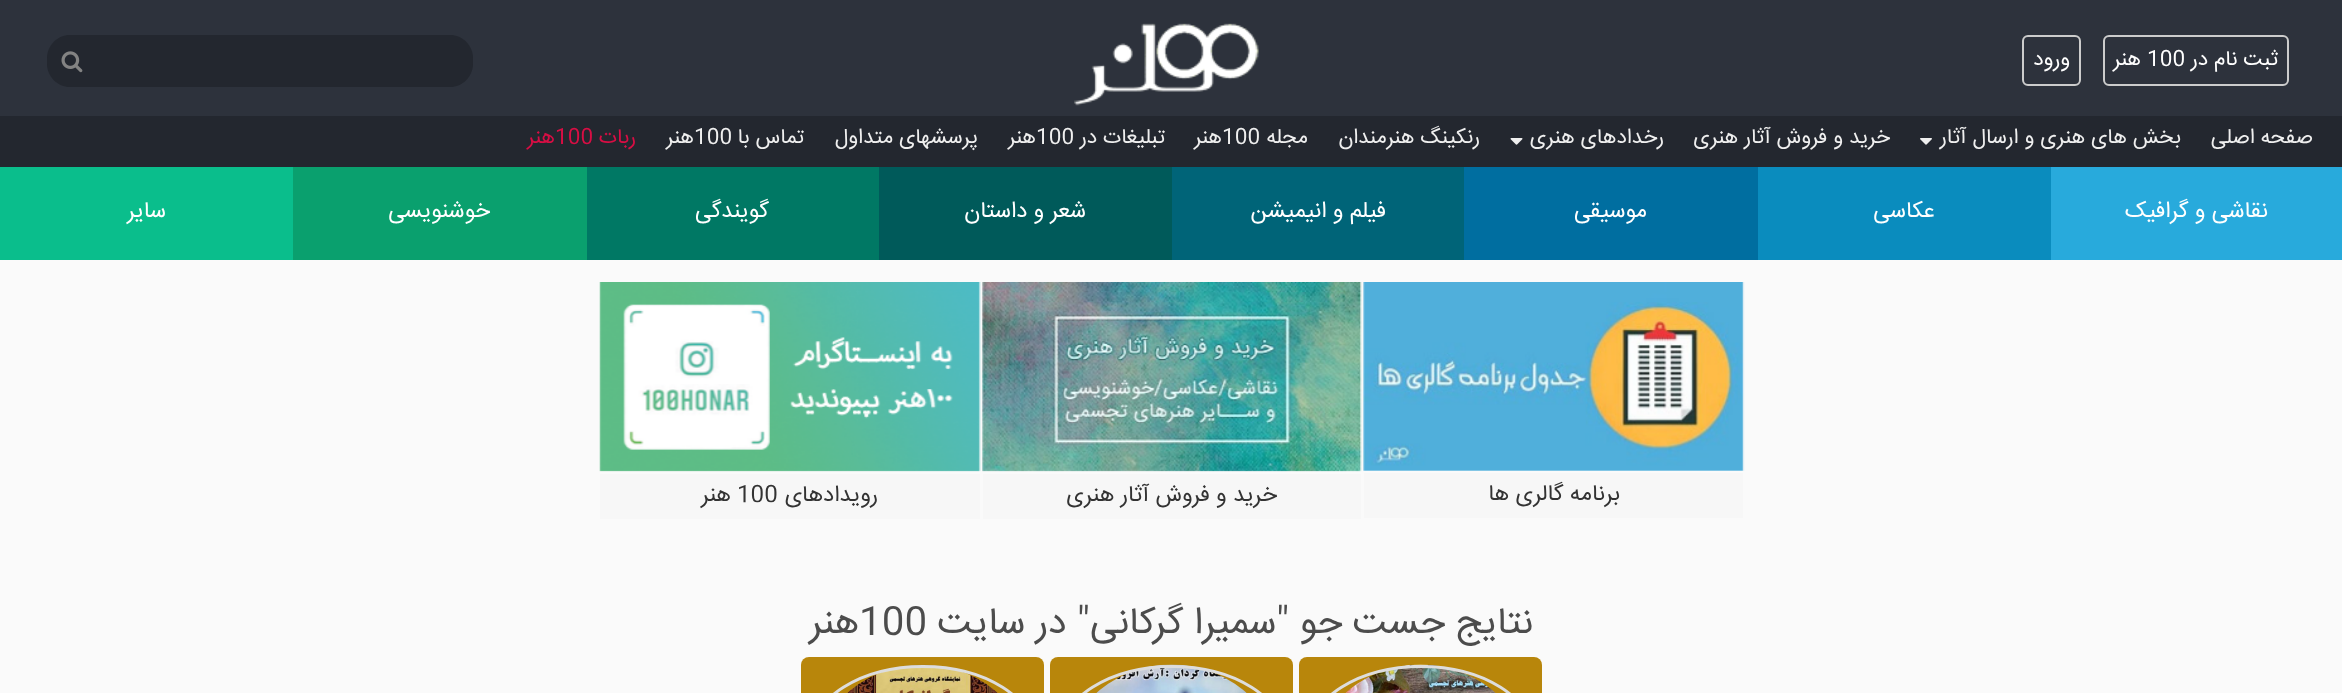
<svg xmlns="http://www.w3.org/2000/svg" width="2342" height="693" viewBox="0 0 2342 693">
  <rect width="100%" height="100%" fill="#fafafa"/>
  <rect x="0" y="0" width="2342" height="116" fill="#2d323c"/>
  <rect x="2104" y="36" width="184" height="49" rx="5" fill="none" stroke="#cccccc" stroke-width="2"/>
  <text x="2278" y="65" font-family="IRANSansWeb" font-size="21" direction="rtl" fill="#ffffff">ثبت نام در</text>
  <text x="2147" y="65" font-family="IRANSansWeb" font-size="21" fill="#ffffff">100</text>
  <text x="2141" y="65" font-family="IRANSansWeb" font-size="21" direction="rtl" fill="#ffffff">هنر</text>
  <rect x="2023" y="36" width="57" height="49" rx="5" fill="none" stroke="#cccccc" stroke-width="2"/>
  <text x="2070" y="65" font-family="IRANSansWeb" font-size="21" direction="rtl" fill="#ffffff">ورود</text>
  <image x="1074" y="23" width="185" height="83" href="img1.png"/>
  <path d="M98 35H450C462.5 35 473 45.5 473 58V64C473 76.5 462.5 87 450 87H98Z" fill="#23272f"/>
  <path d="M70 35H98V87H70C57.5 87 47 76.5 47 64V58C47 45.5 57.5 35 70 35Z" fill="#23272f"/>
  <image x="61" y="51" width="22" height="22" href="img2.png"/>
  <rect x="0" y="116" width="2342" height="51" fill="#23272f"/>
  <text x="2313" y="143" font-family="IRANSansWeb" font-size="21" direction="rtl" fill="#efefef">صفحه اصلی</text>
  <text x="2181" y="143" font-family="IRANSansWeb" font-size="21" direction="rtl" fill="#efefef">بخش های هنری و ارسال آثار</text>
  <image x="1920" y="138" width="12" height="7" href="img3.png"/>
  <text x="1890" y="143" font-family="IRANSansWeb" font-size="21" direction="rtl" fill="#efefef">خرید و فروش آثار هنری</text>
  <text x="1664" y="143" font-family="IRANSansWeb" font-size="21" direction="rtl" fill="#efefef">رخدادهای هنری</text>
  <image x="1510" y="138" width="13" height="7" href="img4.png"/>
  <text x="1480" y="143" font-family="IRANSansWeb" font-size="21" direction="rtl" fill="#efefef">رنکینگ هنرمندان</text>
  <text x="1308" y="143" font-family="IRANSansWeb" font-size="21" direction="rtl" fill="#efefef">مجله</text>
  <text x="1222" y="143" font-family="IRANSansWeb" font-size="21" fill="#efefef">100</text>
  <text x="1222" y="143" font-family="IRANSansWeb" font-size="21" direction="rtl" fill="#efefef">هنر</text>
  <text x="1165" y="143" font-family="IRANSansWeb" font-size="21" direction="rtl" fill="#efefef">تبلیغات در</text>
  <text x="1036" y="143" font-family="IRANSansWeb" font-size="21" fill="#efefef">100</text>
  <text x="1036" y="143" font-family="IRANSansWeb" font-size="21" direction="rtl" fill="#efefef">هنر</text>
  <text x="978" y="143" font-family="IRANSansWeb" font-size="21" direction="rtl" fill="#efefef">پرسشهای متداول</text>
  <text x="804" y="143" font-family="IRANSansWeb" font-size="21" direction="rtl" fill="#efefef">تماس با</text>
  <text x="694" y="143" font-family="IRANSansWeb" font-size="21" fill="#efefef">100</text>
  <text x="694" y="143" font-family="IRANSansWeb" font-size="21" direction="rtl" fill="#efefef">هنر</text>
  <text x="636" y="143" font-family="IRANSansWeb" font-size="21" direction="rtl" fill="#d80e44">ربات</text>
  <text x="555" y="143" font-family="IRANSansWeb" font-size="21" fill="#d80e44">100</text>
  <text x="555" y="143" font-family="IRANSansWeb" font-size="21" direction="rtl" fill="#d80e44">هنر</text>
  <rect x="2051" y="167" width="291" height="93" fill="#28aadc"/>
  <text x="2268" y="217" font-family="IRANSansWeb" font-size="22.5" direction="rtl" fill="#ffffff">نقاشی و گرافیک</text>
  <rect x="1758" y="167" width="293" height="93" fill="#0a8cbe"/>
  <text x="1935" y="217" font-family="IRANSansWeb" font-size="22.5" direction="rtl" fill="#ffffff">عکاسی</text>
  <rect x="1464" y="167" width="294" height="93" fill="#006ea0"/>
  <text x="1647" y="217" font-family="IRANSansWeb" font-size="22.5" direction="rtl" fill="#ffffff">موسیقی</text>
  <rect x="1172" y="167" width="292" height="93" fill="#006478"/>
  <text x="1386" y="217" font-family="IRANSansWeb" font-size="22.5" direction="rtl" fill="#ffffff">فیلم و انیمیشن</text>
  <rect x="879" y="167" width="293" height="93" fill="#005a5a"/>
  <text x="1086" y="217" font-family="IRANSansWeb" font-size="22.5" direction="rtl" fill="#ffffff">شعر و داستان</text>
  <rect x="587" y="167" width="292" height="93" fill="#007864"/>
  <text x="769" y="217" font-family="IRANSansWeb" font-size="22.5" direction="rtl" fill="#ffffff">گویندگی</text>
  <rect x="293" y="167" width="294" height="93" fill="#0aa06e"/>
  <text x="490" y="217" font-family="IRANSansWeb" font-size="22.5" direction="rtl" fill="#ffffff">خوشنویسی</text>
  <rect x="0" y="167" width="293" height="93" fill="#0abe8c"/>
  <text x="166" y="217" font-family="IRANSansWeb" font-size="22.5" direction="rtl" fill="#ffffff">سایر</text>
  <image x="1363" y="282" width="382" height="189" href="img5.png"/>
  <rect x="1364" y="473" width="379" height="45" fill="#f7f7f7"/>
  <text x="1620" y="500" font-family="IRANSansWeb" font-size="22.5" direction="rtl" fill="#333333">برنامه گالری ها</text>
  <image x="982" y="282" width="380" height="190" href="img6.png"/>
  <rect x="983" y="474" width="378" height="45" fill="#f7f7f7"/>
  <text x="1277" y="501" font-family="IRANSansWeb" font-size="22.5" direction="rtl" fill="#333333">خرید و فروش آثار هنری</text>
  <image x="599" y="282" width="382" height="190" href="img7.png"/>
  <rect x="600" y="474" width="380" height="45" fill="#f7f7f7"/>
  <text x="878" y="501" font-family="IRANSansWeb" font-size="22.5" direction="rtl" fill="#333333">رویدادهای</text>
  <text x="737" y="501" font-family="IRANSansWeb" font-size="22.5" fill="#333333">100</text>
  <text x="731" y="501" font-family="IRANSansWeb" font-size="22.5" direction="rtl" fill="#333333">هنر</text>
  <text x="1533" y="633" font-family="IRANSansWeb" font-size="37.5" direction="rtl" fill="#4c4c4c">نتایج جست جو "سمیرا گرکانی" در سایت</text>
  <text x="859" y="633" font-family="IRANSansWeb" font-size="37.5" fill="#4c4c4c">100</text>
  <text x="859" y="633" font-family="IRANSansWeb" font-size="37.5" direction="rtl" fill="#4c4c4c">هنر</text>
  <rect x="1299" y="657" width="243" height="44" rx="8" fill="#b8860b"/>
  <image x="1345" y="664" width="151" height="29" href="img8.png"/>
  <rect x="1308.5" y="666.5" width="225" height="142" rx="112.5" fill="none" stroke="#dddddd" stroke-width="3"/>
  <rect x="1050" y="657" width="243" height="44" rx="8" fill="#b8860b"/>
  <image x="1096" y="664" width="151" height="29" href="img9.png"/>
  <rect x="1059.5" y="666.5" width="225" height="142" rx="112.5" fill="none" stroke="#dddddd" stroke-width="3"/>
  <rect x="801" y="657" width="243" height="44" rx="8" fill="#b8860b"/>
  <image x="847" y="664" width="151" height="29" href="img10.png"/>
  <rect x="810.5" y="666.5" width="225" height="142" rx="112.5" fill="none" stroke="#dddddd" stroke-width="3"/>
</svg>
